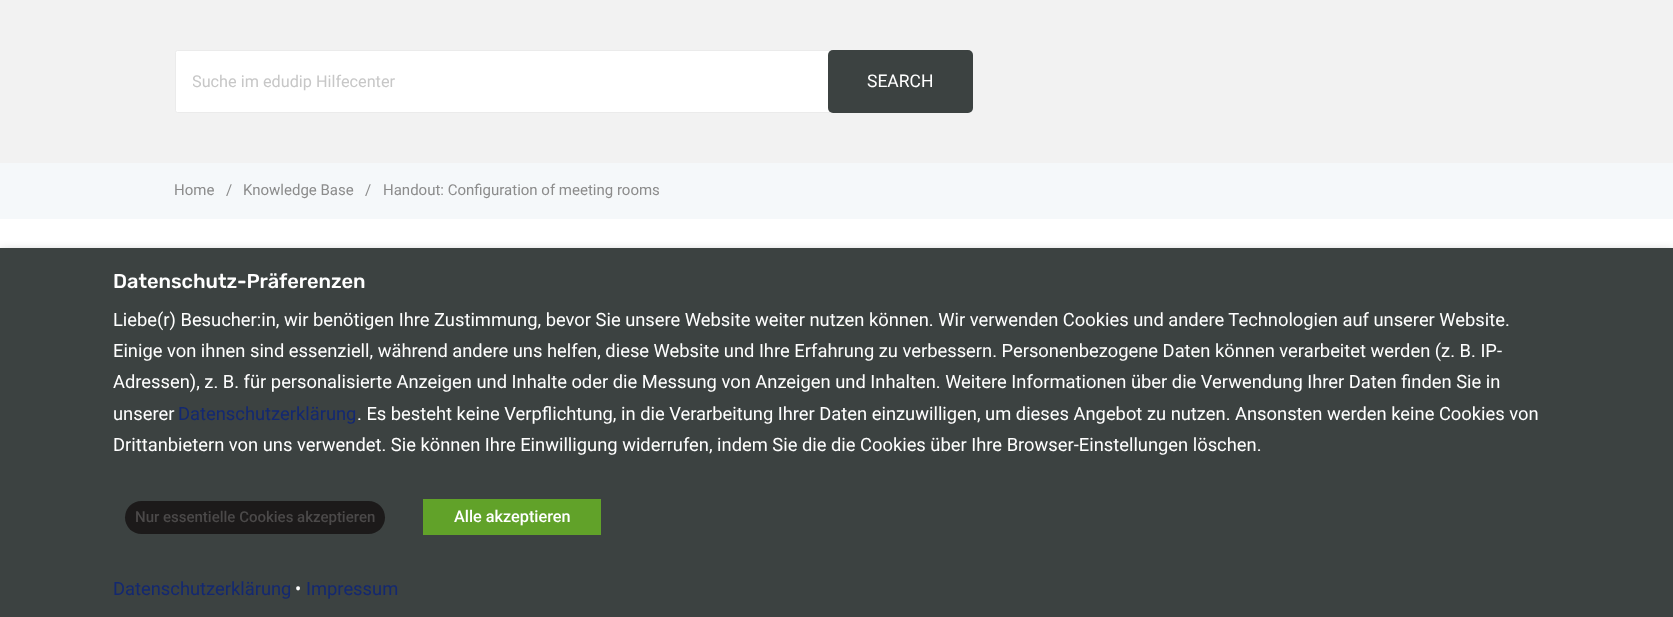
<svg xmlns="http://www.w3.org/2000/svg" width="1673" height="617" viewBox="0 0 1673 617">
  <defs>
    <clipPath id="clip1"><rect x="193" y="73" width="620" height="18"/></clipPath>
    <filter id="blur1" x="-50%" y="-200%" width="200%" height="500%"><feGaussianBlur stdDeviation="6"/></filter>
  </defs>
  <rect width="100%" height="100%" fill="#ffffff"/>
  <rect x="0" y="0" width="1673" height="163" fill="#f2f2f2"/>
  <path d="M177.5 50.5H829.5V112.5H177.5C176.5 112.5 175.5 111.5 175.5 110.5V52.5C175.5 51.5 176.5 50.5 177.5 50.5Z" fill="#ffffff" stroke="#ebebeb"/>
  <g clip-path="url(#clip1)">
    <text x="192" y="87" font-family="Roboto" font-size="16.25" fill="#c7c7c7">Suche im edudip Hilfecenter</text>
  </g>
  <rect x="828" y="50" width="145" height="63" rx="5" fill="#3c4241"/>
  <text x="867" y="87" font-family="Roboto" font-size="17.5" fill="#ffffff">SEARCH</text>
  <rect x="0" y="163" width="1673" height="56" fill="#f5f8fa"/>
  <text x="174" y="195" font-family="Roboto" font-size="15" fill="#8c8c8c">Home</text>
  <text x="226" y="195" font-family="Roboto" font-size="15" fill="#8c8c8c">/</text>
  <text x="243" y="195" font-family="Roboto" font-size="15" fill="#8c8c8c">Knowledge Base</text>
  <text x="365" y="195" font-family="Roboto" font-size="15" fill="#8c8c8c">/</text>
  <text x="383" y="195" font-family="Roboto" font-size="15" fill="#8c8c8c">Handout: Configuration of meeting rooms</text>
  <rect x="0" y="254" width="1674" height="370" fill="#000000" fill-opacity="0.5" filter="url(#blur1)"/>
  <rect x="0" y="248" width="1673" height="369" fill="#3c4241"/>
  <text x="113" y="288" font-family="Rubik" font-size="20" font-weight="500" fill="#ffffff">Datenschutz-Präferenzen</text>
  <text x="113" y="326" font-family="Roboto" font-size="18.33" fill="#ffffff">Liebe(r) Besucher:in, wir benötigen Ihre Zustimmung, bevor Sie unsere Website weiter nutzen können. Wir verwenden Cookies und andere Technologien auf unserer Website.</text>
  <text x="113" y="357" font-family="Roboto" font-size="18.33" fill="#ffffff">Einige von ihnen sind essenziell, während andere uns helfen, diese Website und Ihre Erfahrung zu verbessern. Personenbezogene Daten können verarbeitet werden (z. B. IP-</text>
  <text x="113" y="388" font-family="Roboto" font-size="18.33" fill="#ffffff">Adressen), z. B. für personalisierte Anzeigen und Inhalte oder die Messung von Anzeigen und Inhalten. Weitere Informationen über die Verwendung Ihrer Daten finden Sie in</text>
  <text x="113" y="420" font-family="Roboto" font-size="18.33" fill="#ffffff">unserer</text>
  <text x="178" y="420" font-family="Roboto" font-size="18.33" fill="#132871">Datenschutzerklärung</text>
  <text x="357" y="420" font-family="Roboto" font-size="18.33" fill="#ffffff">. Es besteht keine Verpflichtung, in die Verarbeitung Ihrer Daten einzuwilligen, um dieses Angebot zu nutzen. Ansonsten werden keine Cookies von</text>
  <text x="113" y="451" font-family="Roboto" font-size="18.33" fill="#ffffff">Drittanbietern von uns verwendet. Sie können Ihre Einwilligung widerrufen, indem Sie die die Cookies über Ihre Browser-Einstellungen löschen.</text>
  <rect x="125" y="501" width="260" height="33" rx="16.5" fill="#1c1a1a"/>
  <text x="135" y="522" font-family="Roboto" font-size="15" font-weight="500" fill="#4b4949">Nur essentielle Cookies akzeptieren</text>
  <rect x="423" y="499" width="178" height="36" fill="#61a229"/>
  <text x="454" y="522" font-family="Roboto" font-size="16.25" font-weight="500" fill="#ffffff">Alle akzeptieren</text>
  <text x="113" y="595" font-family="Roboto" font-size="18.33" fill="#132871">Datenschutzerklärung</text>
  <text x="295" y="595" font-family="Roboto" font-size="18.33" fill="#ffffff">•</text>
  <text x="306" y="595" font-family="Roboto" font-size="18.33" fill="#132871">Impressum</text>
</svg>
